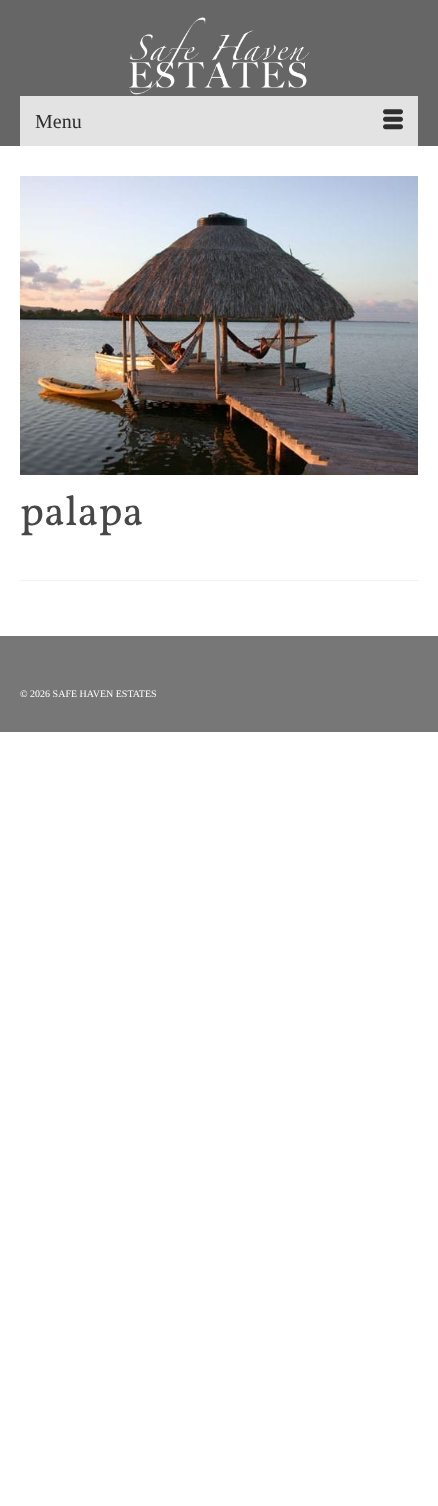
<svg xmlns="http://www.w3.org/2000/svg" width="438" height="1506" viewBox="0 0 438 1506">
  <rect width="100%" height="100%" fill="#ffffff"/>
  <rect x="0" y="0" width="438" height="146" fill="#666666"/>
  <image x="129" y="17" width="181" height="78" href="img1.png"/>
  <rect x="20" y="96" width="398" height="50" fill="#e3e3e3"/>
  <text x="35" y="128" font-family="Liberation Serif" font-size="20" fill="#2d2d2d">Menu</text>
  <image x="383" y="109" width="20" height="21" href="img2.png"/>
  <image x="20" y="176" width="398" height="299" href="img3.png"/>
  <text x="20" y="525" font-family="Vollkorn" font-size="42" fill="#474747">palapa</text>
  <rect x="20" y="580" width="398" height="1" fill="#f2f2f2"/>
  <rect x="0" y="636" width="438" height="96" fill="#777777"/>
  <text x="20" y="697" font-family="Liberation Serif" font-size="10" fill="#ffffff">© 2026 SAFE HAVEN ESTATES</text>
</svg>
